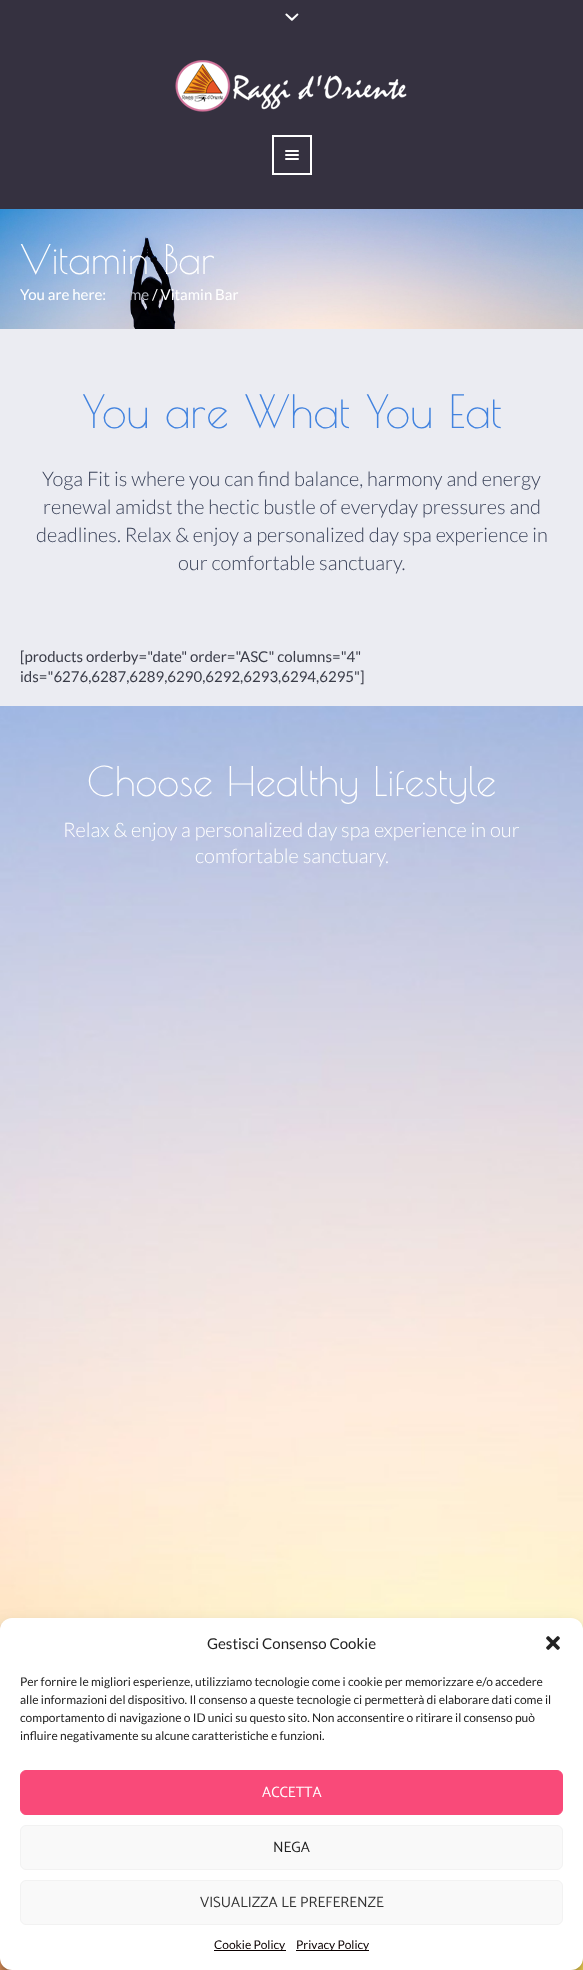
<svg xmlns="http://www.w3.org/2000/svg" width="583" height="1970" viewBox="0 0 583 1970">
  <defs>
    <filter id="blur1" x="-50%" y="-200%" width="200%" height="500%"><feGaussianBlur stdDeviation="3"/></filter>
    <filter id="blur2" x="-50%" y="-200%" width="200%" height="500%"><feGaussianBlur stdDeviation="10"/></filter>
  </defs>
  <rect width="100%" height="100%" fill="#ebecf2"/>
  <rect x="0" y="0" width="583" height="209" fill="#353140"/>
  <image x="285" y="13" width="14" height="8" href="img1.png"/>
  <image x="175" y="60" width="232" height="52" href="img2.png"/>
  <rect x="273" y="136" width="38" height="38" fill="none" stroke="#ffffff" stroke-width="2"/>
  <image x="285" y="150" width="14" height="10" href="img3.png"/>
  <image x="0" y="209" width="583" height="120" href="img4.png"/>
  <text x="20" y="274" font-family="Poiret One" font-size="40" fill="#ffffff">Vitamin Bar</text>
  <text x="20" y="300" font-family="Lato" font-size="15" fill="#ffffff">You are here:</text>
  <text x="129" y="300" font-family="Lato" font-size="15" fill="#b3b7bf">me</text>
  <text x="152" y="300" font-family="Lato" font-size="15" fill="#ffffff">/ Vitamin Bar</text>
  <text x="82" y="428" font-family="Poiret One" font-size="45" fill="#4283df">You are What You Eat</text>
  <text x="42" y="486" font-family="Lato" font-size="20" font-weight="300" fill="#3a4259">Yoga Fit is where you can find balance, harmony and energy</text>
  <text x="43" y="514" font-family="Lato" font-size="20" font-weight="300" fill="#3a4259">renewal amidst the hectic bustle of everyday pressures and</text>
  <text x="36" y="542" font-family="Lato" font-size="20" font-weight="300" fill="#3a4259">deadlines. Relax &amp; enjoy a personalized day spa experience in</text>
  <text x="178" y="570" font-family="Lato" font-size="20" font-weight="300" fill="#3a4259">our comfortable sanctuary.</text>
  <text x="20" y="662" font-family="Lato" font-size="15" fill="#393b47">[products orderby="date" order="ASC" columns="4"</text>
  <text x="20" y="682" font-family="Lato" font-size="15" fill="#393b47">ids="6276,6287,6289,6290,6292,6293,6294,6295"]</text>
  <image x="0" y="706" width="583" height="1264" href="img5.png"/>
  <text x="87" y="796" font-family="Poiret One" font-size="40" fill="#ffffff">Choose Healthy Lifestyle</text>
  <text x="63" y="837" font-family="Lato" font-size="20" font-weight="300" fill="#ffffff">Relax &amp; enjoy a personalized day spa experience in our</text>
  <text x="195" y="863" font-family="Lato" font-size="20" font-weight="300" fill="#ffffff">comfortable sanctuary.</text>
  <rect x="0" y="1624" width="583" height="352" rx="12" fill="#000000" fill-opacity="0.23" filter="url(#blur1)"/>
  <rect x="0" y="1628" width="583" height="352" rx="12" fill="#000000" fill-opacity="0.19" filter="url(#blur2)"/>
  <rect x="0" y="1618" width="583" height="352" rx="12" fill="#ffffff"/>
  <text x="207" y="1649" font-family="Lato" font-size="15" fill="#222222">Gestisci Consenso Cookie</text>
  <image x="546" y="1636" width="14" height="14" href="img6.png"/>
  <text x="20" y="1686" font-family="Lato" font-size="12" fill="#222222">Per fornire le migliori esperienze, utilizziamo tecnologie come i cookie per memorizzare e/o accedere</text>
  <text x="20" y="1704" font-family="Lato" font-size="12" fill="#222222">alle informazioni del dispositivo. Il consenso a queste tecnologie ci permetterà di elaborare dati come il</text>
  <text x="20" y="1722" font-family="Lato" font-size="12" fill="#222222">comportamento di navigazione o ID unici su questo sito. Non acconsentire o ritirare il consenso può</text>
  <text x="20" y="1740" font-family="Lato" font-size="12" fill="#222222">influire negativamente su alcune caratteristiche e funzioni.</text>
  <rect x="20.5" y="1770.5" width="542" height="44" rx="5.5" fill="#f94a79" stroke="#f94a79"/>
  <text x="262" y="1797" font-family="Catamaran" font-size="15" fill="#ffffff">ACCETTA</text>
  <rect x="20.5" y="1825.5" width="542" height="44" rx="5.5" fill="#f9f9f9" stroke="#f2f2f2"/>
  <text x="273" y="1852" font-family="Catamaran" font-size="15" fill="#222222">NEGA</text>
  <rect x="20.5" y="1880.5" width="542" height="44" rx="5.5" fill="#f9f9f9" stroke="#f2f2f2"/>
  <text x="200" y="1907" font-family="Catamaran" font-size="15" fill="#333333">VISUALIZZA LE PREFERENZE</text>
  <rect x="214" y="1950" width="72" height="1" fill="#0a0000"/>
  <text x="214" y="1949" font-family="Lato" font-size="12" fill="#0a0000">Cookie Policy</text>
  <rect x="296" y="1950" width="73" height="1" fill="#0a0000"/>
  <text x="296" y="1949" font-family="Lato" font-size="12" fill="#0a0000">Privacy Policy</text>
</svg>
